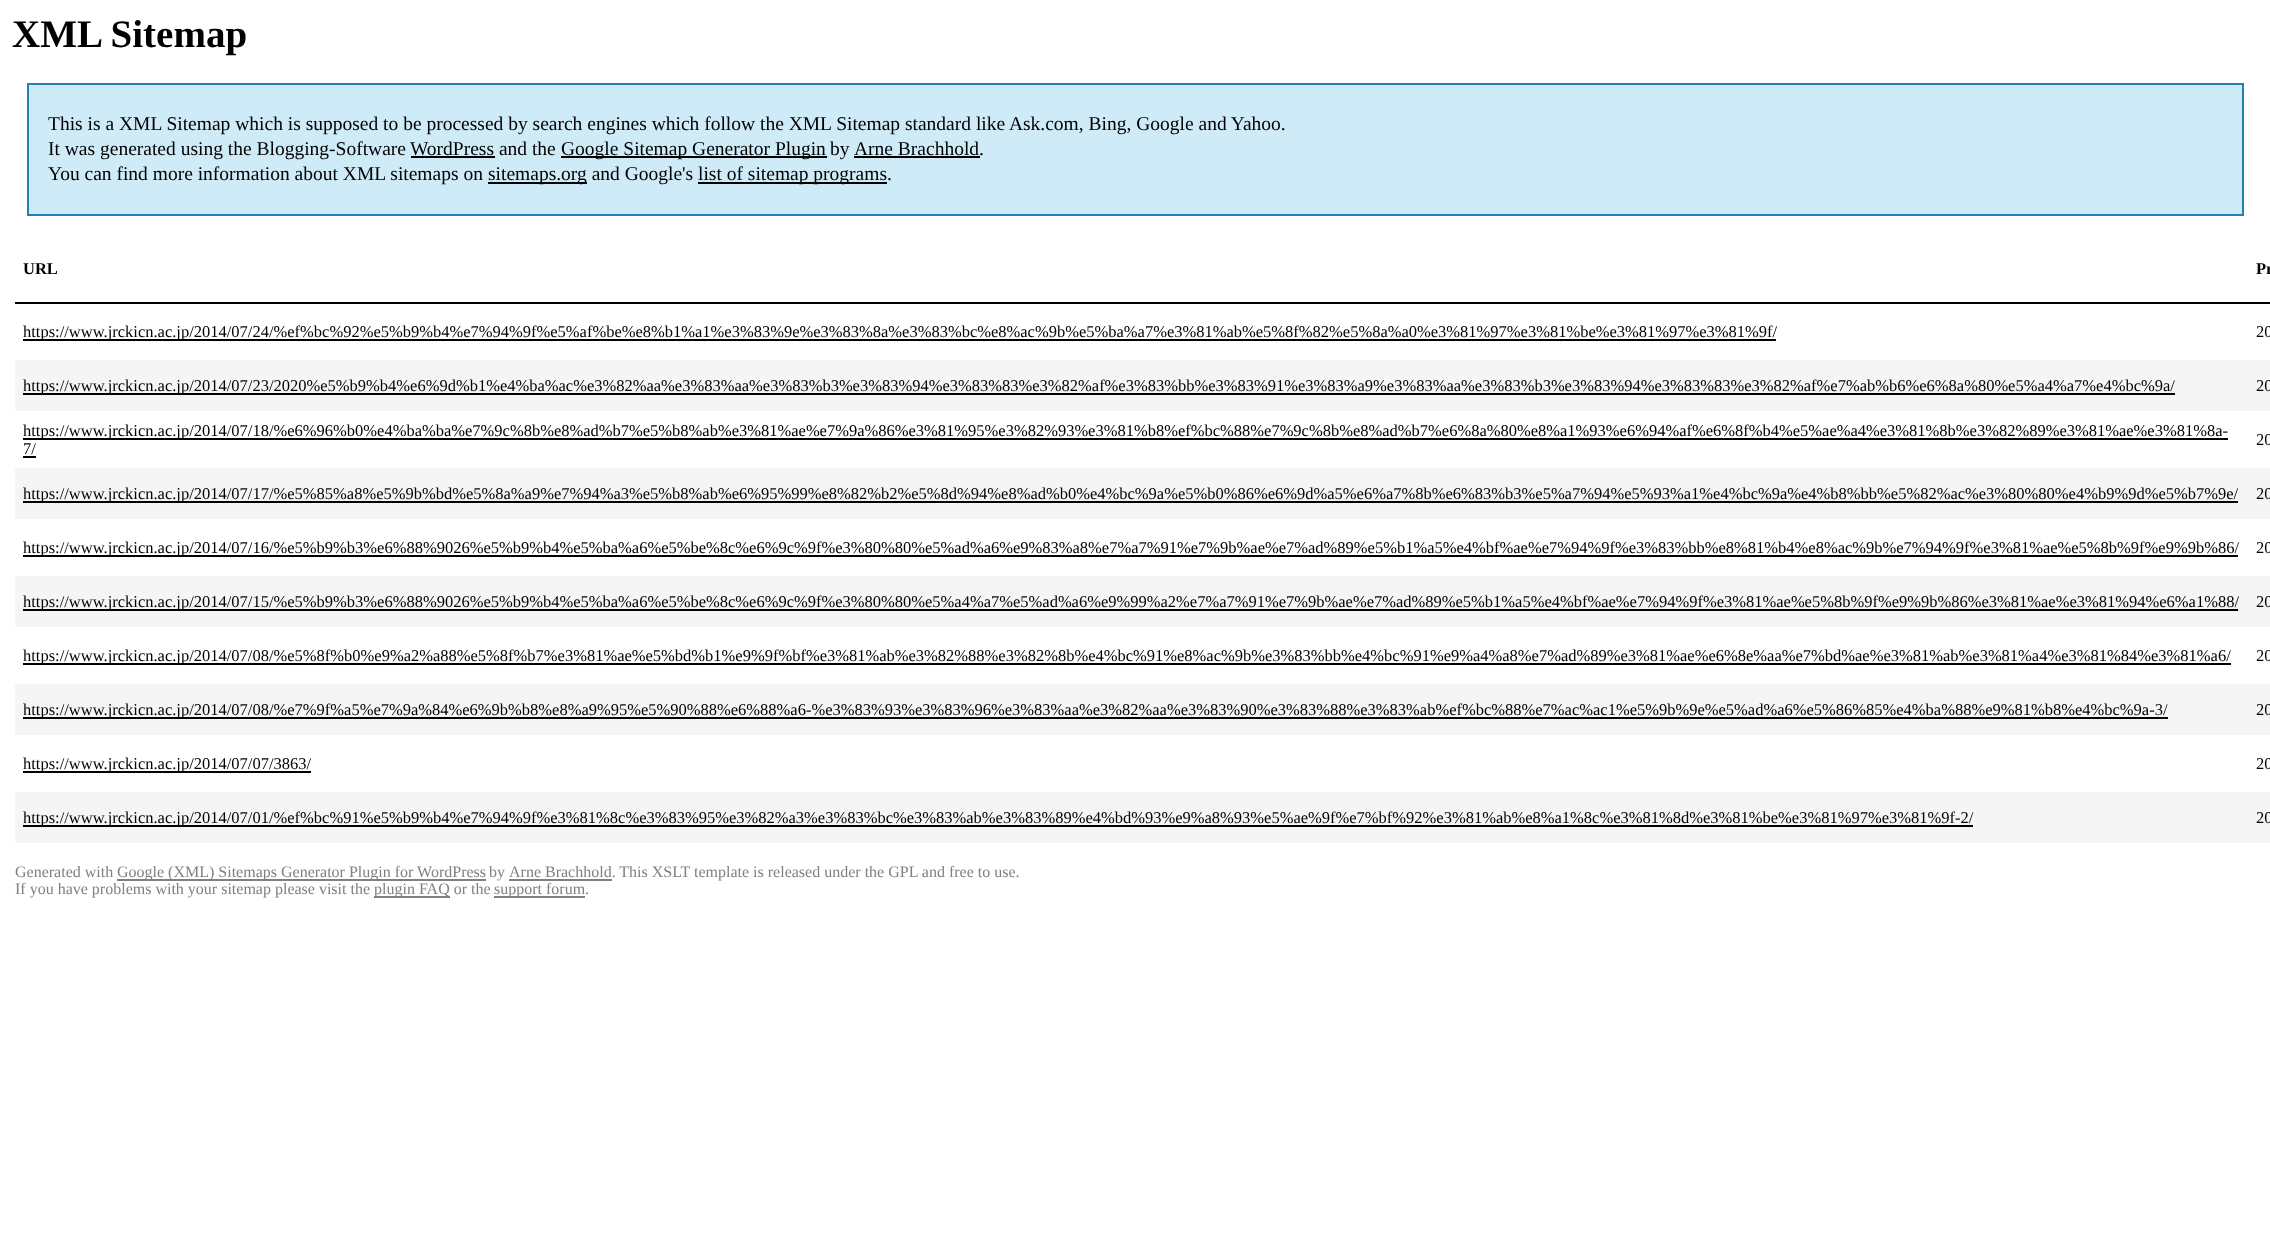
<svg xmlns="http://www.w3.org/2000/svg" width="2270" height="1250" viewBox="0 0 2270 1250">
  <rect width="100%" height="100%" fill="#ffffff"/>
  <text x="12" y="47" font-family="Liberation Serif" font-size="39" font-weight="bold" fill="#000000">XML Sitemap</text>
  <rect x="28" y="84" width="2215" height="131" fill="#cfebf7" stroke="#2580b2" stroke-width="2"/>
  <text x="48" y="130" font-family="Liberation Serif" font-size="19.5" fill="#000000">This is a XML Sitemap which is supposed to be processed by search engines which follow the XML Sitemap standard like Ask.com, Bing, Google and Yahoo.</text>
  <text x="48" y="155" font-family="Liberation Serif" font-size="19.5" fill="#000000">It was generated using the Blogging-Software</text>
  <text x="410" y="155" font-family="Liberation Serif" font-size="19.5" fill="#000000">WordPress and the</text>
  <rect x="411" y="156" width="84" height="2" fill="#000000"/>
  <rect x="561" y="156" width="266" height="2" fill="#000000"/>
  <text x="561" y="155" font-family="Liberation Serif" font-size="19.5" fill="#000000">Google Sitemap Generator Plugin</text>
  <text x="830" y="155" font-family="Liberation Serif" font-size="19.5" fill="#000000">by</text>
  <text x="854" y="155" font-family="Liberation Serif" font-size="19.5" fill="#000000">Arne Brachhold.</text>
  <rect x="854" y="156" width="126" height="2" fill="#000000"/>
  <text x="48" y="180" font-family="Liberation Serif" font-size="19.5" fill="#000000">You can find more information about XML sitemaps on</text>
  <rect x="488" y="182" width="99" height="2" fill="#000000"/>
  <text x="488" y="180" font-family="Liberation Serif" font-size="19.5" fill="#000000">sitemaps.org and Google's</text>
  <rect x="698" y="182" width="189" height="2" fill="#000000"/>
  <text x="698" y="180" font-family="Liberation Serif" font-size="19.5" fill="#000000">list of sitemap programs.</text>
  <rect x="15" y="302" width="2255" height="2" fill="#000000"/>
  <text x="23" y="274" font-family="Liberation Serif" font-size="16.5" font-weight="bold" fill="#000000">URL</text>
  <text x="2256" y="274" font-family="Liberation Serif" font-size="16.5" font-weight="bold" fill="#000000">Pr</text>
  <rect x="23" y="339" width="1753" height="2" fill="#000000"/>
  <text x="23" y="337" font-family="Liberation Serif" font-size="16.5" fill="#000000">https://www.jrckicn.ac.jp/2014/07/24/%ef%bc%92%e5%b9%b4%e7%94%9f%e5%af%be%e8%b1%a1%e3%83%9e%e3%83%8a%e3%83%bc%e8%ac%9b%e5%ba%a7%e3%81%ab%e5%8f%82%e5%8a%a0%e3%81%97%e3%81%be%e3%81%97%e3%81%9f/</text>
  <text x="2256" y="337" font-family="Liberation Serif" font-size="16.5" fill="#000000">20</text>
  <rect x="15" y="360" width="2255" height="51" fill="#f5f5f5"/>
  <rect x="23" y="393" width="2152" height="2" fill="#000000"/>
  <text x="23" y="391" font-family="Liberation Serif" font-size="16.5" fill="#000000">https://www.jrckicn.ac.jp/2014/07/23/2020%e5%b9%b4%e6%9d%b1%e4%ba%ac%e3%82%aa%e3%83%aa%e3%83%b3%e3%83%94%e3%83%83%e3%82%af%e3%83%bb%e3%83%91%e3%83%a9%e3%83%aa%e3%83%b3%e3%83%94%e3%83%83%e3%82%af%e7%ab%b6%e6%8a%80%e5%a4%a7%e4%bc%9a/</text>
  <text x="2256" y="391" font-family="Liberation Serif" font-size="16.5" fill="#000000">20</text>
  <rect x="23" y="438" width="2205" height="2" fill="#000000"/>
  <text x="23" y="436" font-family="Liberation Serif" font-size="16.5" fill="#000000">https://www.jrckicn.ac.jp/2014/07/18/%e6%96%b0%e4%ba%ba%e7%9c%8b%e8%ad%b7%e5%b8%ab%e3%81%ae%e7%9a%86%e3%81%95%e3%82%93%e3%81%b8%ef%bc%88%e7%9c%8b%e8%ad%b7%e6%8a%80%e8%a1%93%e6%94%af%e6%8f%b4%e5%ae%a4%e3%81%8b%e3%82%89%e3%81%ae%e3%81%8a-</text>
  <text x="23" y="454" font-family="Liberation Serif" font-size="16.5" fill="#000000">7/</text>
  <rect x="23" y="456" width="13" height="2" fill="#000000"/>
  <text x="2256" y="445" font-family="Liberation Serif" font-size="16.5" fill="#000000">20</text>
  <rect x="15" y="468" width="2255" height="51" fill="#f5f5f5"/>
  <rect x="23" y="501" width="2215" height="2" fill="#000000"/>
  <text x="23" y="499" font-family="Liberation Serif" font-size="16.5" fill="#000000">https://www.jrckicn.ac.jp/2014/07/17/%e5%85%a8%e5%9b%bd%e5%8a%a9%e7%94%a3%e5%b8%ab%e6%95%99%e8%82%b2%e5%8d%94%e8%ad%b0%e4%bc%9a%e5%b0%86%e6%9d%a5%e6%a7%8b%e6%83%b3%e5%a7%94%e5%93%a1%e4%bc%9a%e4%b8%bb%e5%82%ac%e3%80%80%e4%b9%9d%e5%b7%9e/</text>
  <text x="2256" y="499" font-family="Liberation Serif" font-size="16.5" fill="#000000">20</text>
  <rect x="23" y="555" width="2215" height="2" fill="#000000"/>
  <text x="23" y="553" font-family="Liberation Serif" font-size="16.5" fill="#000000">https://www.jrckicn.ac.jp/2014/07/16/%e5%b9%b3%e6%88%9026%e5%b9%b4%e5%ba%a6%e5%be%8c%e6%9c%9f%e3%80%80%e5%ad%a6%e9%83%a8%e7%a7%91%e7%9b%ae%e7%ad%89%e5%b1%a5%e4%bf%ae%e7%94%9f%e3%83%bb%e8%81%b4%e8%ac%9b%e7%94%9f%e3%81%ae%e5%8b%9f%e9%9b%86/</text>
  <text x="2256" y="553" font-family="Liberation Serif" font-size="16.5" fill="#000000">20</text>
  <rect x="15" y="576" width="2255" height="51" fill="#f5f5f5"/>
  <rect x="23" y="609" width="2215" height="2" fill="#000000"/>
  <text x="23" y="607" font-family="Liberation Serif" font-size="16.5" fill="#000000">https://www.jrckicn.ac.jp/2014/07/15/%e5%b9%b3%e6%88%9026%e5%b9%b4%e5%ba%a6%e5%be%8c%e6%9c%9f%e3%80%80%e5%a4%a7%e5%ad%a6%e9%99%a2%e7%a7%91%e7%9b%ae%e7%ad%89%e5%b1%a5%e4%bf%ae%e7%94%9f%e3%81%ae%e5%8b%9f%e9%9b%86%e3%81%ae%e3%81%94%e6%a1%88/</text>
  <text x="2256" y="607" font-family="Liberation Serif" font-size="16.5" fill="#000000">20</text>
  <rect x="23" y="663" width="2208" height="2" fill="#000000"/>
  <text x="23" y="661" font-family="Liberation Serif" font-size="16.5" fill="#000000">https://www.jrckicn.ac.jp/2014/07/08/%e5%8f%b0%e9%a2%a88%e5%8f%b7%e3%81%ae%e5%bd%b1%e9%9f%bf%e3%81%ab%e3%82%88%e3%82%8b%e4%bc%91%e8%ac%9b%e3%83%bb%e4%bc%91%e9%a4%a8%e7%ad%89%e3%81%ae%e6%8e%aa%e7%bd%ae%e3%81%ab%e3%81%a4%e3%81%84%e3%81%a6/</text>
  <text x="2256" y="661" font-family="Liberation Serif" font-size="16.5" fill="#000000">20</text>
  <rect x="15" y="684" width="2255" height="51" fill="#f5f5f5"/>
  <rect x="23" y="717" width="2145" height="2" fill="#000000"/>
  <text x="23" y="715" font-family="Liberation Serif" font-size="16.5" fill="#000000">https://www.jrckicn.ac.jp/2014/07/08/%e7%9f%a5%e7%9a%84%e6%9b%b8%e8%a9%95%e5%90%88%e6%88%a6-%e3%83%93%e3%83%96%e3%83%aa%e3%82%aa%e3%83%90%e3%83%88%e3%83%ab%ef%bc%88%e7%ac%ac1%e5%9b%9e%e5%ad%a6%e5%86%85%e4%ba%88%e9%81%b8%e4%bc%9a-3/</text>
  <text x="2256" y="715" font-family="Liberation Serif" font-size="16.5" fill="#000000">20</text>
  <rect x="23" y="771" width="288" height="2" fill="#000000"/>
  <text x="23" y="769" font-family="Liberation Serif" font-size="16.5" fill="#000000">https://www.jrckicn.ac.jp/2014/07/07/3863/</text>
  <text x="2256" y="769" font-family="Liberation Serif" font-size="16.5" fill="#000000">20</text>
  <rect x="15" y="792" width="2255" height="51" fill="#f5f5f5"/>
  <rect x="23" y="825" width="1950" height="2" fill="#000000"/>
  <text x="23" y="823" font-family="Liberation Serif" font-size="16.5" fill="#000000">https://www.jrckicn.ac.jp/2014/07/01/%ef%bc%91%e5%b9%b4%e7%94%9f%e3%81%8c%e3%83%95%e3%82%a3%e3%83%bc%e3%83%ab%e3%83%89%e4%bd%93%e9%a8%93%e5%ae%9f%e7%bf%92%e3%81%ab%e8%a1%8c%e3%81%8d%e3%81%be%e3%81%97%e3%81%9f-2/</text>
  <text x="2256" y="823" font-family="Liberation Serif" font-size="16.5" fill="#000000">20</text>
  <text x="15" y="877" font-family="Liberation Serif" font-size="16" fill="#808080">Generated with</text>
  <rect x="117" y="879" width="369" height="2" fill="#808080"/>
  <text x="117" y="877" font-family="Liberation Serif" font-size="16" fill="#808080">Google (XML) Sitemaps Generator Plugin for WordPress</text>
  <text x="489" y="877" font-family="Liberation Serif" font-size="16" fill="#808080">by</text>
  <rect x="509" y="879" width="103" height="2" fill="#808080"/>
  <text x="509" y="877" font-family="Liberation Serif" font-size="16" fill="#808080">Arne Brachhold. This XSLT template is released under the GPL and free to use.</text>
  <text x="15" y="894" font-family="Liberation Serif" font-size="16" fill="#808080">If you have problems with your sitemap please visit the</text>
  <rect x="374" y="896" width="76" height="2" fill="#808080"/>
  <text x="374" y="894" font-family="Liberation Serif" font-size="16" fill="#808080">plugin FAQ or the</text>
  <rect x="494" y="896" width="91" height="2" fill="#808080"/>
  <text x="494" y="894" font-family="Liberation Serif" font-size="16" fill="#808080">support forum.</text>
</svg>
